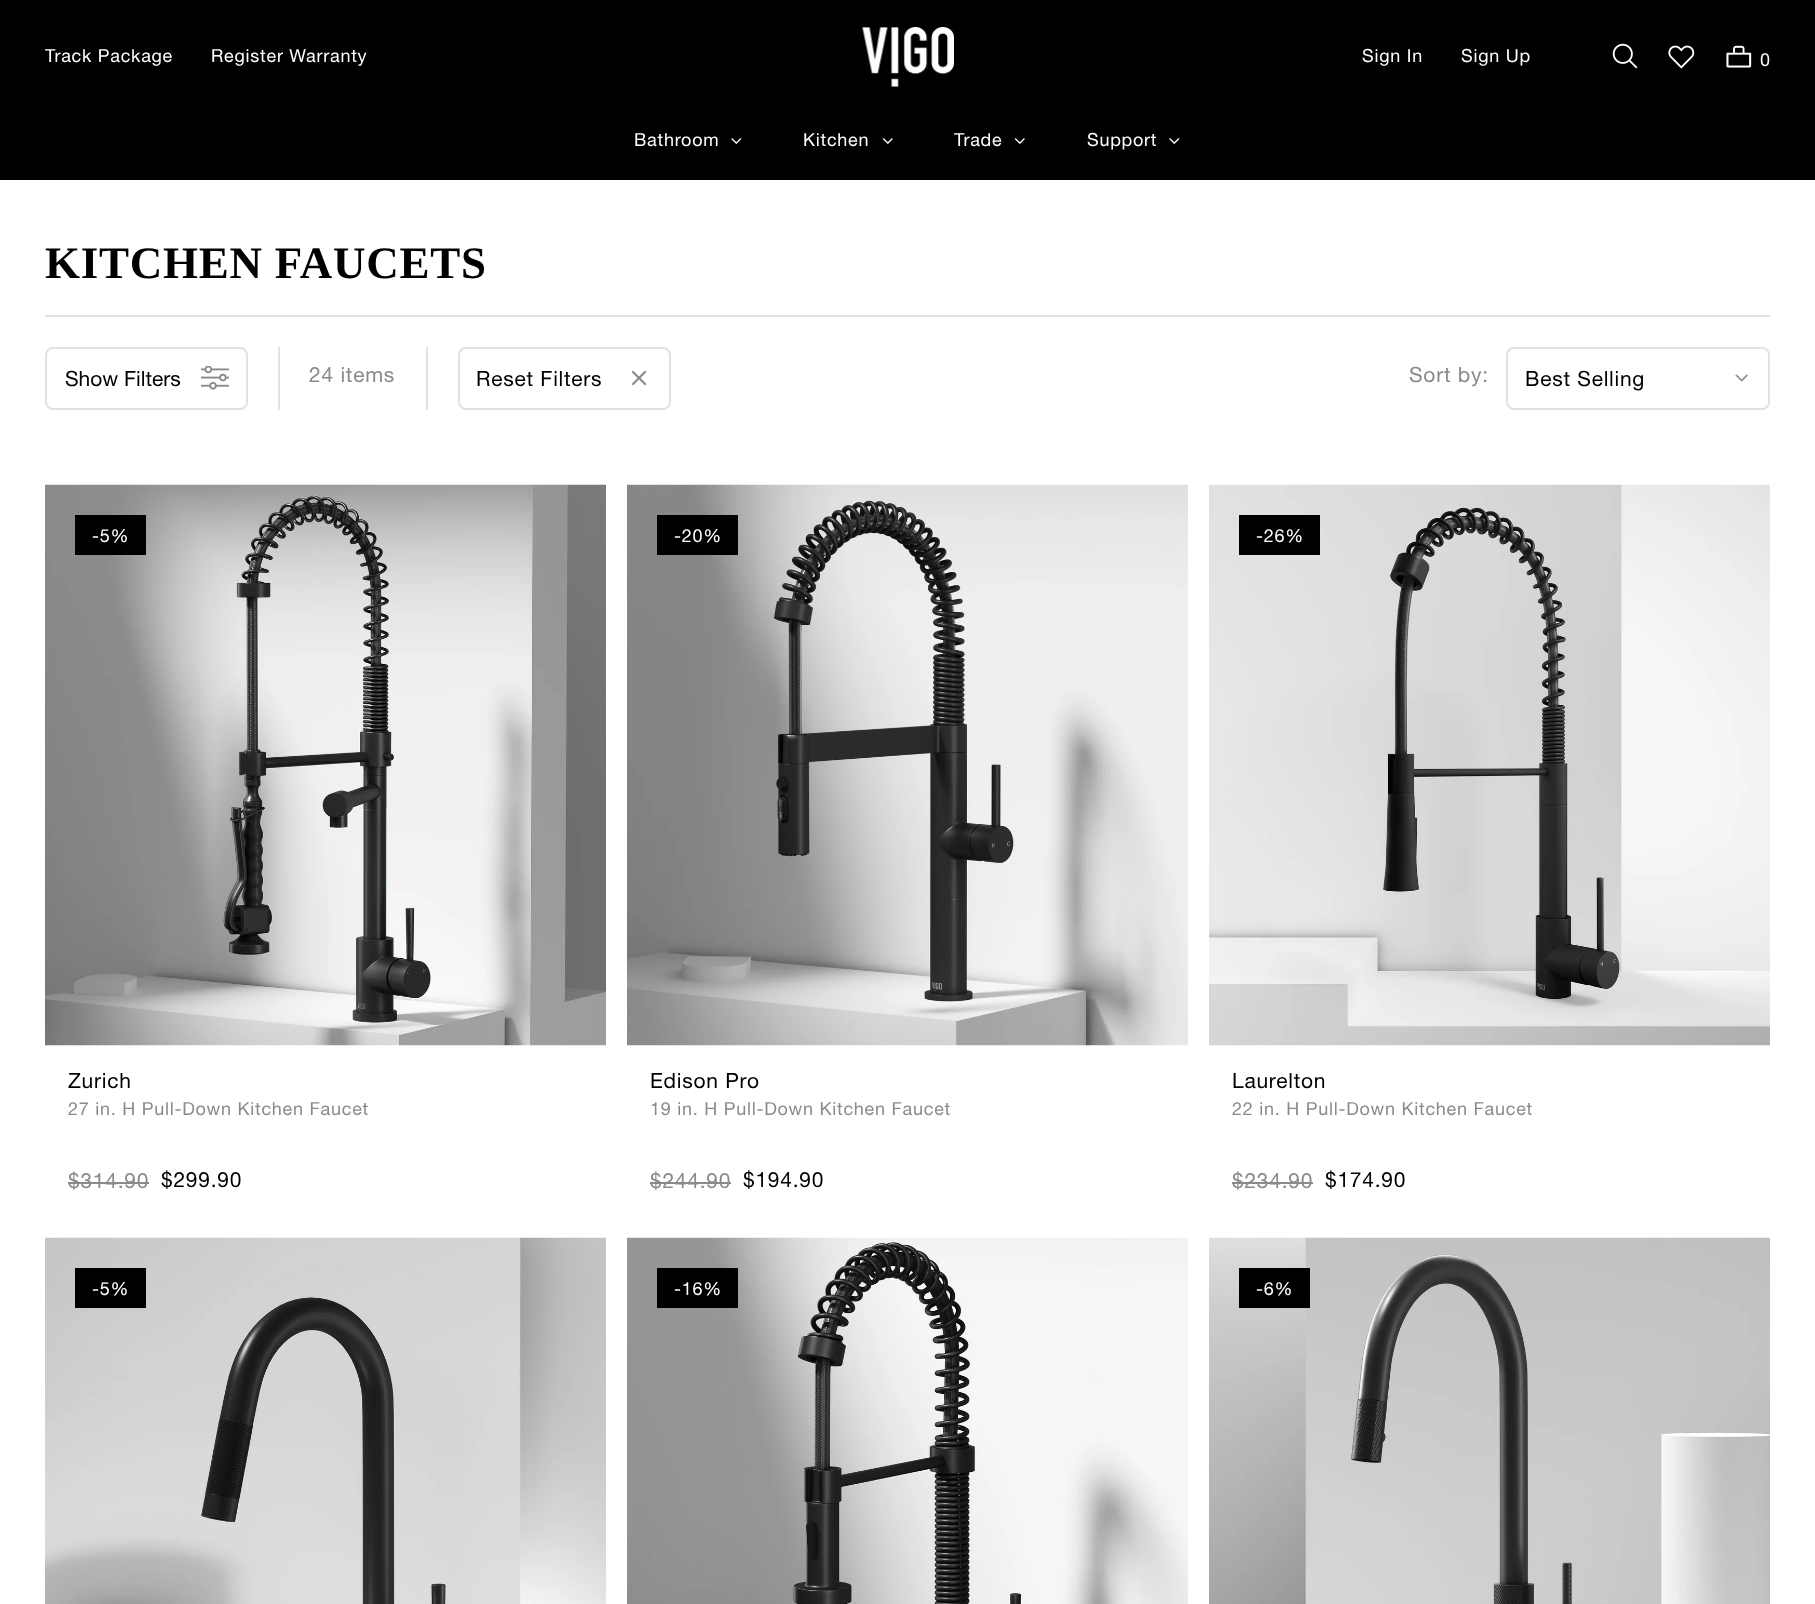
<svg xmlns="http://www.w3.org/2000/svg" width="1815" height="1604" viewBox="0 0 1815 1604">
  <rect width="100%" height="100%" fill="#ffffff"/>
  <rect x="0" y="0" width="1815" height="180" fill="#000000"/>
  <text x="45" y="62" font-family="Helvetica Neue" font-size="18" letter-spacing="0.75" fill="#ffffff">Track Package</text>
  <text x="211" y="62" font-family="Helvetica Neue" font-size="18" letter-spacing="0.75" fill="#ffffff">Register Warranty</text>
  <image x="862" y="27" width="92" height="60" href="img1.png"/>
  <text x="1362" y="62" font-family="Helvetica Neue" font-size="18" letter-spacing="0.75" fill="#ffffff">Sign In</text>
  <text x="1461" y="62" font-family="Helvetica Neue" font-size="18" letter-spacing="0.75" fill="#ffffff">Sign Up</text>
  <image x="1612" y="43" width="26" height="26" href="img2.png"/>
  <image x="1668" y="45" width="27" height="24" href="img3.png"/>
  <image x="1726" y="45" width="26" height="23" href="img4.png"/>
  <text x="1760" y="66" font-family="Helvetica Neue" font-size="18" fill="#ffffff">0</text>
  <text x="634" y="146" font-family="Helvetica Neue" font-size="18" letter-spacing="0.75" fill="#ffffff">Bathroom</text>
  <image x="731" y="138" width="11" height="6" href="img5.png"/>
  <text x="803" y="146" font-family="Helvetica Neue" font-size="18" letter-spacing="0.75" fill="#ffffff">Kitchen</text>
  <image x="882" y="138" width="11" height="6" href="img6.png"/>
  <text x="954" y="146" font-family="Helvetica Neue" font-size="18" letter-spacing="0.75" fill="#ffffff">Trade</text>
  <image x="1014" y="138" width="11" height="6" href="img6.png"/>
  <text x="1087" y="146" font-family="Helvetica Neue" font-size="18" letter-spacing="0.75" fill="#ffffff">Support</text>
  <image x="1169" y="138" width="11" height="6" href="img5.png"/>
  <rect x="45" y="315" width="1725" height="2" fill="#e2e2e2"/>
  <text x="45" y="278" font-family="Liberation Serif" font-size="45" font-weight="bold" letter-spacing="0.75" fill="#000000">KITCHEN FAUCETS</text>
  <rect x="46" y="348" width="201" height="61" rx="7" fill="none" stroke="#e2e2e2" stroke-width="2"/>
  <text x="65" y="386" font-family="Helvetica Neue" font-size="21" fill="#000000">Show Filters</text>
  <image x="201" y="366" width="28" height="24" href="img7.png"/>
  <rect x="426" y="347" width="2" height="63" fill="#e2e2e2"/>
  <rect x="278" y="347" width="2" height="63" fill="#e2e2e2"/>
  <text x="309" y="382" font-family="Helvetica Neue" font-size="21" letter-spacing="0.75" fill="#898a8a">24 items</text>
  <rect x="459" y="348" width="211" height="61" rx="7" fill="none" stroke="#e2e2e2" stroke-width="2"/>
  <text x="476" y="386" font-family="Helvetica Neue" font-size="21" letter-spacing="0.75" fill="#000000">Reset Filters</text>
  <image x="632" y="371" width="15" height="15" href="img8.png"/>
  <text x="1409" y="382" font-family="Helvetica Neue" font-size="21" letter-spacing="0.75" fill="#898a8a">Sort by:</text>
  <rect x="1507" y="348" width="262" height="61" rx="7" fill="none" stroke="#e2e2e2" stroke-width="2"/>
  <text x="1525" y="386" font-family="Helvetica Neue" font-size="21" letter-spacing="0.75" fill="#000000">Best Selling</text>
  <image x="1735" y="374" width="13" height="8" href="img9.png"/>
  <image x="45" y="484" width="561" height="562" href="img10.png"/>
  <rect x="75" y="515" width="71" height="40" fill="#000000"/>
  <text x="92" y="542" font-family="Helvetica Neue" font-size="18" letter-spacing="0.75" fill="#ffffff">-5%</text>
  <text x="68" y="1088" font-family="Helvetica Neue" font-size="21" letter-spacing="0.75" fill="#000000">Zurich</text>
  <text x="68" y="1115" font-family="Helvetica Neue" font-size="18" letter-spacing="0.75" fill="#898a8a">27 in. H Pull-Down Kitchen Faucet</text>
  <text x="68" y="1188" font-family="Helvetica Neue" font-size="21" letter-spacing="0.75" fill="#898a8a">$314.90</text>
  <rect x="68" y="1182" width="81" height="2" fill="#898a8a"/>
  <text x="161" y="1187" font-family="Helvetica Neue" font-size="21" letter-spacing="0.75" fill="#000000">$299.90</text>
  <image x="627" y="484" width="561" height="562" href="img11.png"/>
  <rect x="657" y="515" width="81" height="40" fill="#000000"/>
  <text x="674" y="542" font-family="Helvetica Neue" font-size="18" letter-spacing="0.75" fill="#ffffff">-20%</text>
  <text x="650" y="1088" font-family="Helvetica Neue" font-size="21" letter-spacing="0.75" fill="#000000">Edison Pro</text>
  <text x="650" y="1115" font-family="Helvetica Neue" font-size="18" letter-spacing="0.75" fill="#898a8a">19 in. H Pull-Down Kitchen Faucet</text>
  <text x="650" y="1188" font-family="Helvetica Neue" font-size="21" letter-spacing="0.75" fill="#898a8a">$244.90</text>
  <rect x="650" y="1182" width="81" height="2" fill="#898a8a"/>
  <text x="743" y="1187" font-family="Helvetica Neue" font-size="21" letter-spacing="0.75" fill="#000000">$194.90</text>
  <image x="1209" y="484" width="561" height="562" href="img12.png"/>
  <rect x="1239" y="515" width="81" height="40" fill="#000000"/>
  <text x="1256" y="542" font-family="Helvetica Neue" font-size="18" letter-spacing="0.75" fill="#ffffff">-26%</text>
  <text x="1232" y="1088" font-family="Helvetica Neue" font-size="21" letter-spacing="0.75" fill="#000000">Laurelton</text>
  <text x="1232" y="1115" font-family="Helvetica Neue" font-size="18" letter-spacing="0.75" fill="#898a8a">22 in. H Pull-Down Kitchen Faucet</text>
  <text x="1232" y="1188" font-family="Helvetica Neue" font-size="21" letter-spacing="0.75" fill="#898a8a">$234.90</text>
  <rect x="1232" y="1182" width="81" height="2" fill="#898a8a"/>
  <text x="1325" y="1187" font-family="Helvetica Neue" font-size="21" letter-spacing="0.75" fill="#000000">$174.90</text>
  <image x="45" y="1237" width="561" height="367" href="img13.png"/>
  <rect x="75" y="1268" width="71" height="40" fill="#000000"/>
  <text x="92" y="1295" font-family="Helvetica Neue" font-size="18" letter-spacing="0.75" fill="#ffffff">-5%</text>
  <image x="627" y="1237" width="561" height="367" href="img14.png"/>
  <rect x="657" y="1268" width="81" height="40" fill="#000000"/>
  <text x="674" y="1295" font-family="Helvetica Neue" font-size="18" letter-spacing="0.75" fill="#ffffff">-16%</text>
  <image x="1209" y="1237" width="561" height="367" href="img15.png"/>
  <rect x="1239" y="1268" width="71" height="40" fill="#000000"/>
  <text x="1256" y="1295" font-family="Helvetica Neue" font-size="18" letter-spacing="0.75" fill="#ffffff">-6%</text>
</svg>
